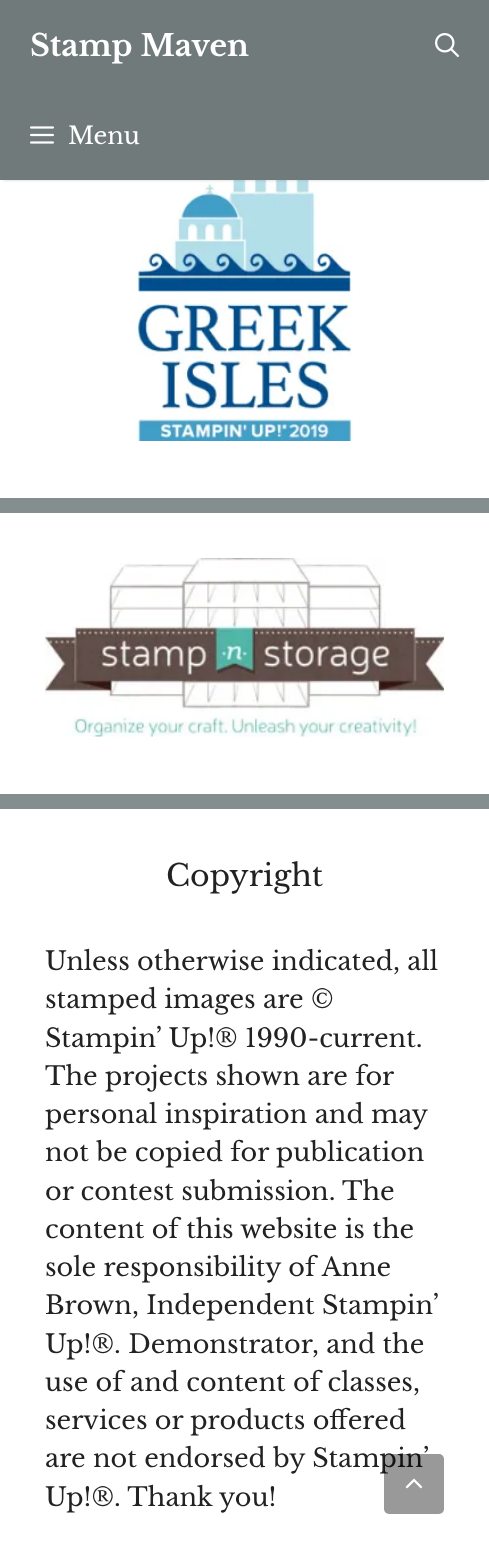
<svg xmlns="http://www.w3.org/2000/svg" width="489" height="1558" viewBox="0 0 489 1558">
  <defs>
    <filter id="blur1" x="-50%" y="-200%" width="200%" height="500%"><feGaussianBlur stdDeviation="1.5"/></filter>
  </defs>
  <rect width="100%" height="100%" fill="#848e8e"/>
  <rect x="0" y="180" width="489" height="318" fill="#ffffff"/>
  <image x="134" y="180" width="219" height="261" href="img3.png"/>
  <rect x="3" y="6" width="483" height="174" fill="#000000" fill-opacity="0.2" filter="url(#blur1)"/>
  <rect x="0" y="0" width="489" height="180" fill="#707a7a"/>
  <text x="30" y="56" font-family="Libre Baskerville" font-size="30" font-weight="bold" fill="#ffffff">Stamp Maven</text>
  <image x="435" y="33" width="24" height="24" href="img1.png"/>
  <image x="30" y="126" width="24" height="18" href="img2.png"/>
  <text x="68" y="144" font-family="Libre Baskerville" font-size="24" fill="#ffffff">Menu</text>
  <rect x="0" y="513" width="489" height="281" fill="#ffffff"/>
  <image x="45" y="558" width="399" height="179" href="img4.png"/>
  <rect x="0" y="809" width="489" height="749" fill="#ffffff"/>
  <text x="166" y="886" font-family="Libre Baskerville" font-size="30" fill="#222222">Copyright</text>
  <text x="45" y="970" font-family="Libre Baskerville" font-size="25.5" fill="#222222">Unless otherwise indicated, all</text>
  <text x="45" y="1008" font-family="Libre Baskerville" font-size="25.5" fill="#222222">stamped images are ©</text>
  <text x="45" y="1047" font-family="Libre Baskerville" font-size="25.5" fill="#222222">Stampin’ Up!® 1990-current.</text>
  <text x="45" y="1085" font-family="Libre Baskerville" font-size="25.5" fill="#222222">The projects shown are for</text>
  <text x="45" y="1123" font-family="Libre Baskerville" font-size="25.5" fill="#222222">personal inspiration and may</text>
  <text x="45" y="1161" font-family="Libre Baskerville" font-size="25.5" fill="#222222">not be copied for publication</text>
  <text x="45" y="1200" font-family="Libre Baskerville" font-size="25.5" fill="#222222">or contest submission. The</text>
  <text x="45" y="1238" font-family="Libre Baskerville" font-size="25.5" fill="#222222">content of this website is the</text>
  <text x="45" y="1276" font-family="Libre Baskerville" font-size="25.5" fill="#222222">sole responsibility of Anne</text>
  <text x="45" y="1314" font-family="Libre Baskerville" font-size="25.5" fill="#222222">Brown, Independent Stampin’</text>
  <text x="45" y="1353" font-family="Libre Baskerville" font-size="25.5" fill="#222222">Up!®. Demonstrator, and the</text>
  <text x="45" y="1391" font-family="Libre Baskerville" font-size="25.5" fill="#222222">use of and content of classes,</text>
  <text x="45" y="1429" font-family="Libre Baskerville" font-size="25.5" fill="#222222">services or products offered</text>
  <text x="45" y="1467" font-family="Libre Baskerville" font-size="25.5" fill="#222222">are not endorsed by Stampin’</text>
  <text x="45" y="1506" font-family="Libre Baskerville" font-size="25.5" fill="#222222">Up!®. Thank you!</text>
  <rect x="384" y="1454" width="60" height="60" rx="5" fill="#000000" fill-opacity="0.4"/>
  <image x="405" y="1478" width="18" height="11" href="img5.png"/>
</svg>
